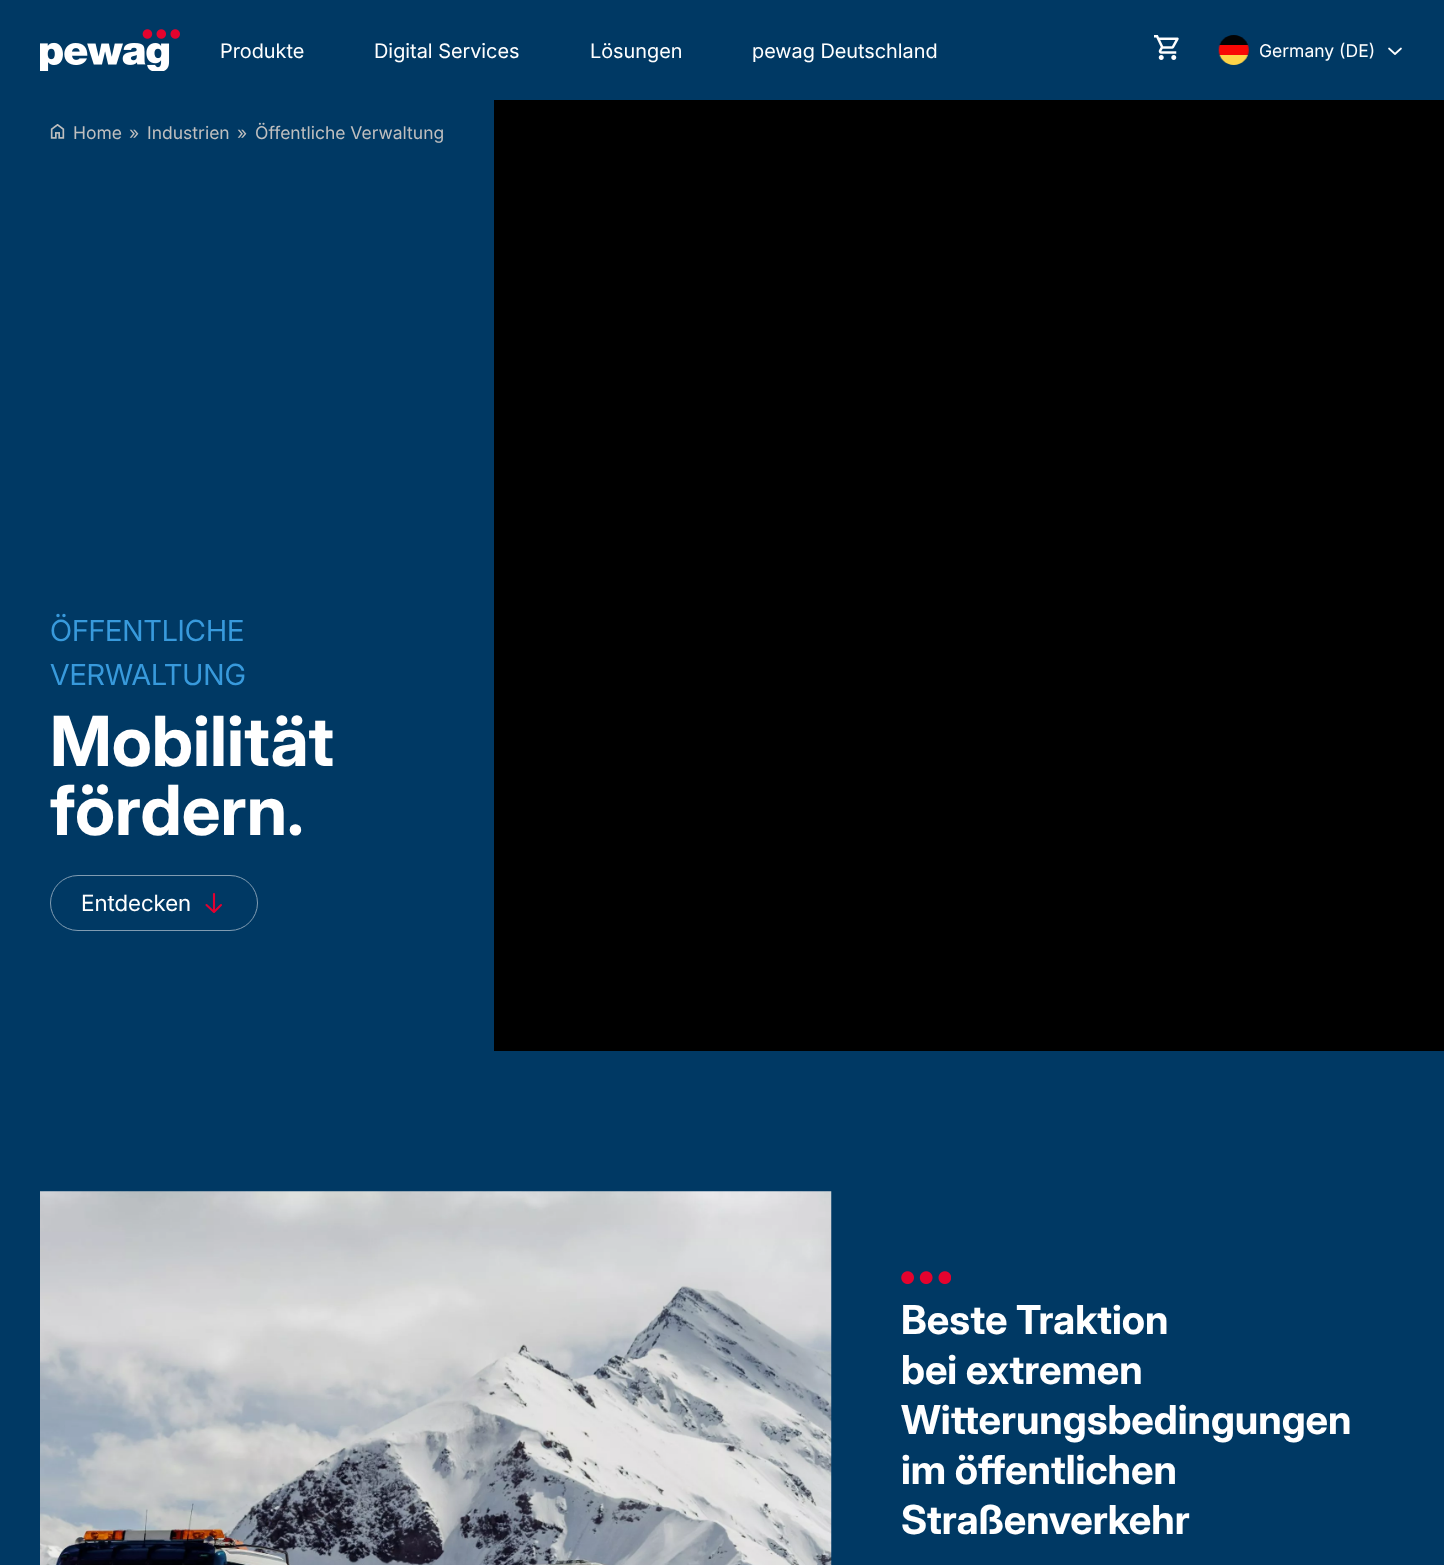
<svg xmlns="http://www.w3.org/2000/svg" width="1444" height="1565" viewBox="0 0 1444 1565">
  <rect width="100%" height="100%" fill="#003964"/>
  <image x="40" y="29" width="140" height="42" href="img1.png"/>
  <text x="220" y="58" font-family="'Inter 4'" font-size="20" fill="#ffffff">Produkte</text>
  <text x="374" y="58" font-family="'Inter 4'" font-size="20" fill="#ffffff">Digital Services</text>
  <text x="590" y="58" font-family="'Inter 4'" font-size="20" fill="#ffffff">Lösungen</text>
  <text x="752" y="58" font-family="'Inter 4'" font-size="20" fill="#ffffff">pewag Deutschland</text>
  <image x="1154" y="35" width="25" height="25" href="img2.png"/>
  <image x="1218" y="35" width="31" height="30" href="img3.png"/>
  <text x="1259" y="57" font-family="Inter" font-size="17.5" fill="#ffffff">Germany (DE)</text>
  <path d="M1401 48.5L1395 54L1389 48.5" fill="none" stroke="#ffffff" stroke-width="1.7" stroke-linecap="round" stroke-linejoin="round"/>
  <image x="50" y="124" width="15" height="15" href="img4.png"/>
  <text x="73" y="139" font-family="Inter" font-size="17.5" fill="#bfbfbf">Home</text>
  <text x="129" y="139" font-family="Inter" font-size="17.5" fill="#bfbfbf">»</text>
  <text x="147" y="139" font-family="Inter" font-size="17.5" fill="#bfbfbf">Industrien</text>
  <text x="237" y="139" font-family="Inter" font-size="17.5" fill="#bfbfbf">»</text>
  <text x="255" y="139" font-family="Inter" font-size="17.5" fill="#bfbfbf">Öffentliche Verwaltung</text>
  <text x="50" y="641" font-family="'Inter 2'" font-size="29" fill="#389adc">ÖFFENTLICHE</text>
  <text x="50" y="685" font-family="'Inter 2'" font-size="29" fill="#389adc">VERWALTUNG</text>
  <text x="50" y="766" font-family="Inter Display" font-size="69" font-weight="bold" fill="#ffffff">Mobilität</text>
  <text x="50" y="835" font-family="Inter Display" font-size="69" font-weight="bold" fill="#ffffff">fördern.</text>
  <rect x="50.5" y="875.5" width="207" height="55" rx="27.5" fill="none" stroke="#809cb2"/>
  <text x="81" y="911" font-family="'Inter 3'" font-size="22.5" fill="#ffffff">Entdecken</text>
  <path d="M206.5 905L214 912L221 905" fill="none" stroke="#e20031" stroke-width="2.1" stroke-linecap="round" stroke-linejoin="round"/>
  <path d="M214 910.5V894" fill="none" stroke="#e20031" stroke-width="2.1" stroke-linecap="round"/>
  <rect x="494" y="100" width="950" height="951" fill="#000000"/>
  <image x="40" y="1191" width="792" height="374" href="img5.png"/>
  <image x="901" y="1271" width="50" height="14" href="img6.png"/>
  <text x="901" y="1334" font-family="Inter Display" font-size="40" font-weight="bold" fill="#ffffff">Beste Traktion</text>
  <text x="901" y="1384" font-family="Inter Display" font-size="40" font-weight="bold" fill="#ffffff">bei extremen</text>
  <text x="901" y="1434" font-family="Inter Display" font-size="40" font-weight="bold" fill="#ffffff">Witterungsbedingungen</text>
  <text x="901" y="1484" font-family="Inter Display" font-size="40" font-weight="bold" fill="#ffffff">im öffentlichen</text>
  <text x="901" y="1534" font-family="Inter Display" font-size="40" font-weight="bold" fill="#ffffff">Straßenverkehr</text>
</svg>
